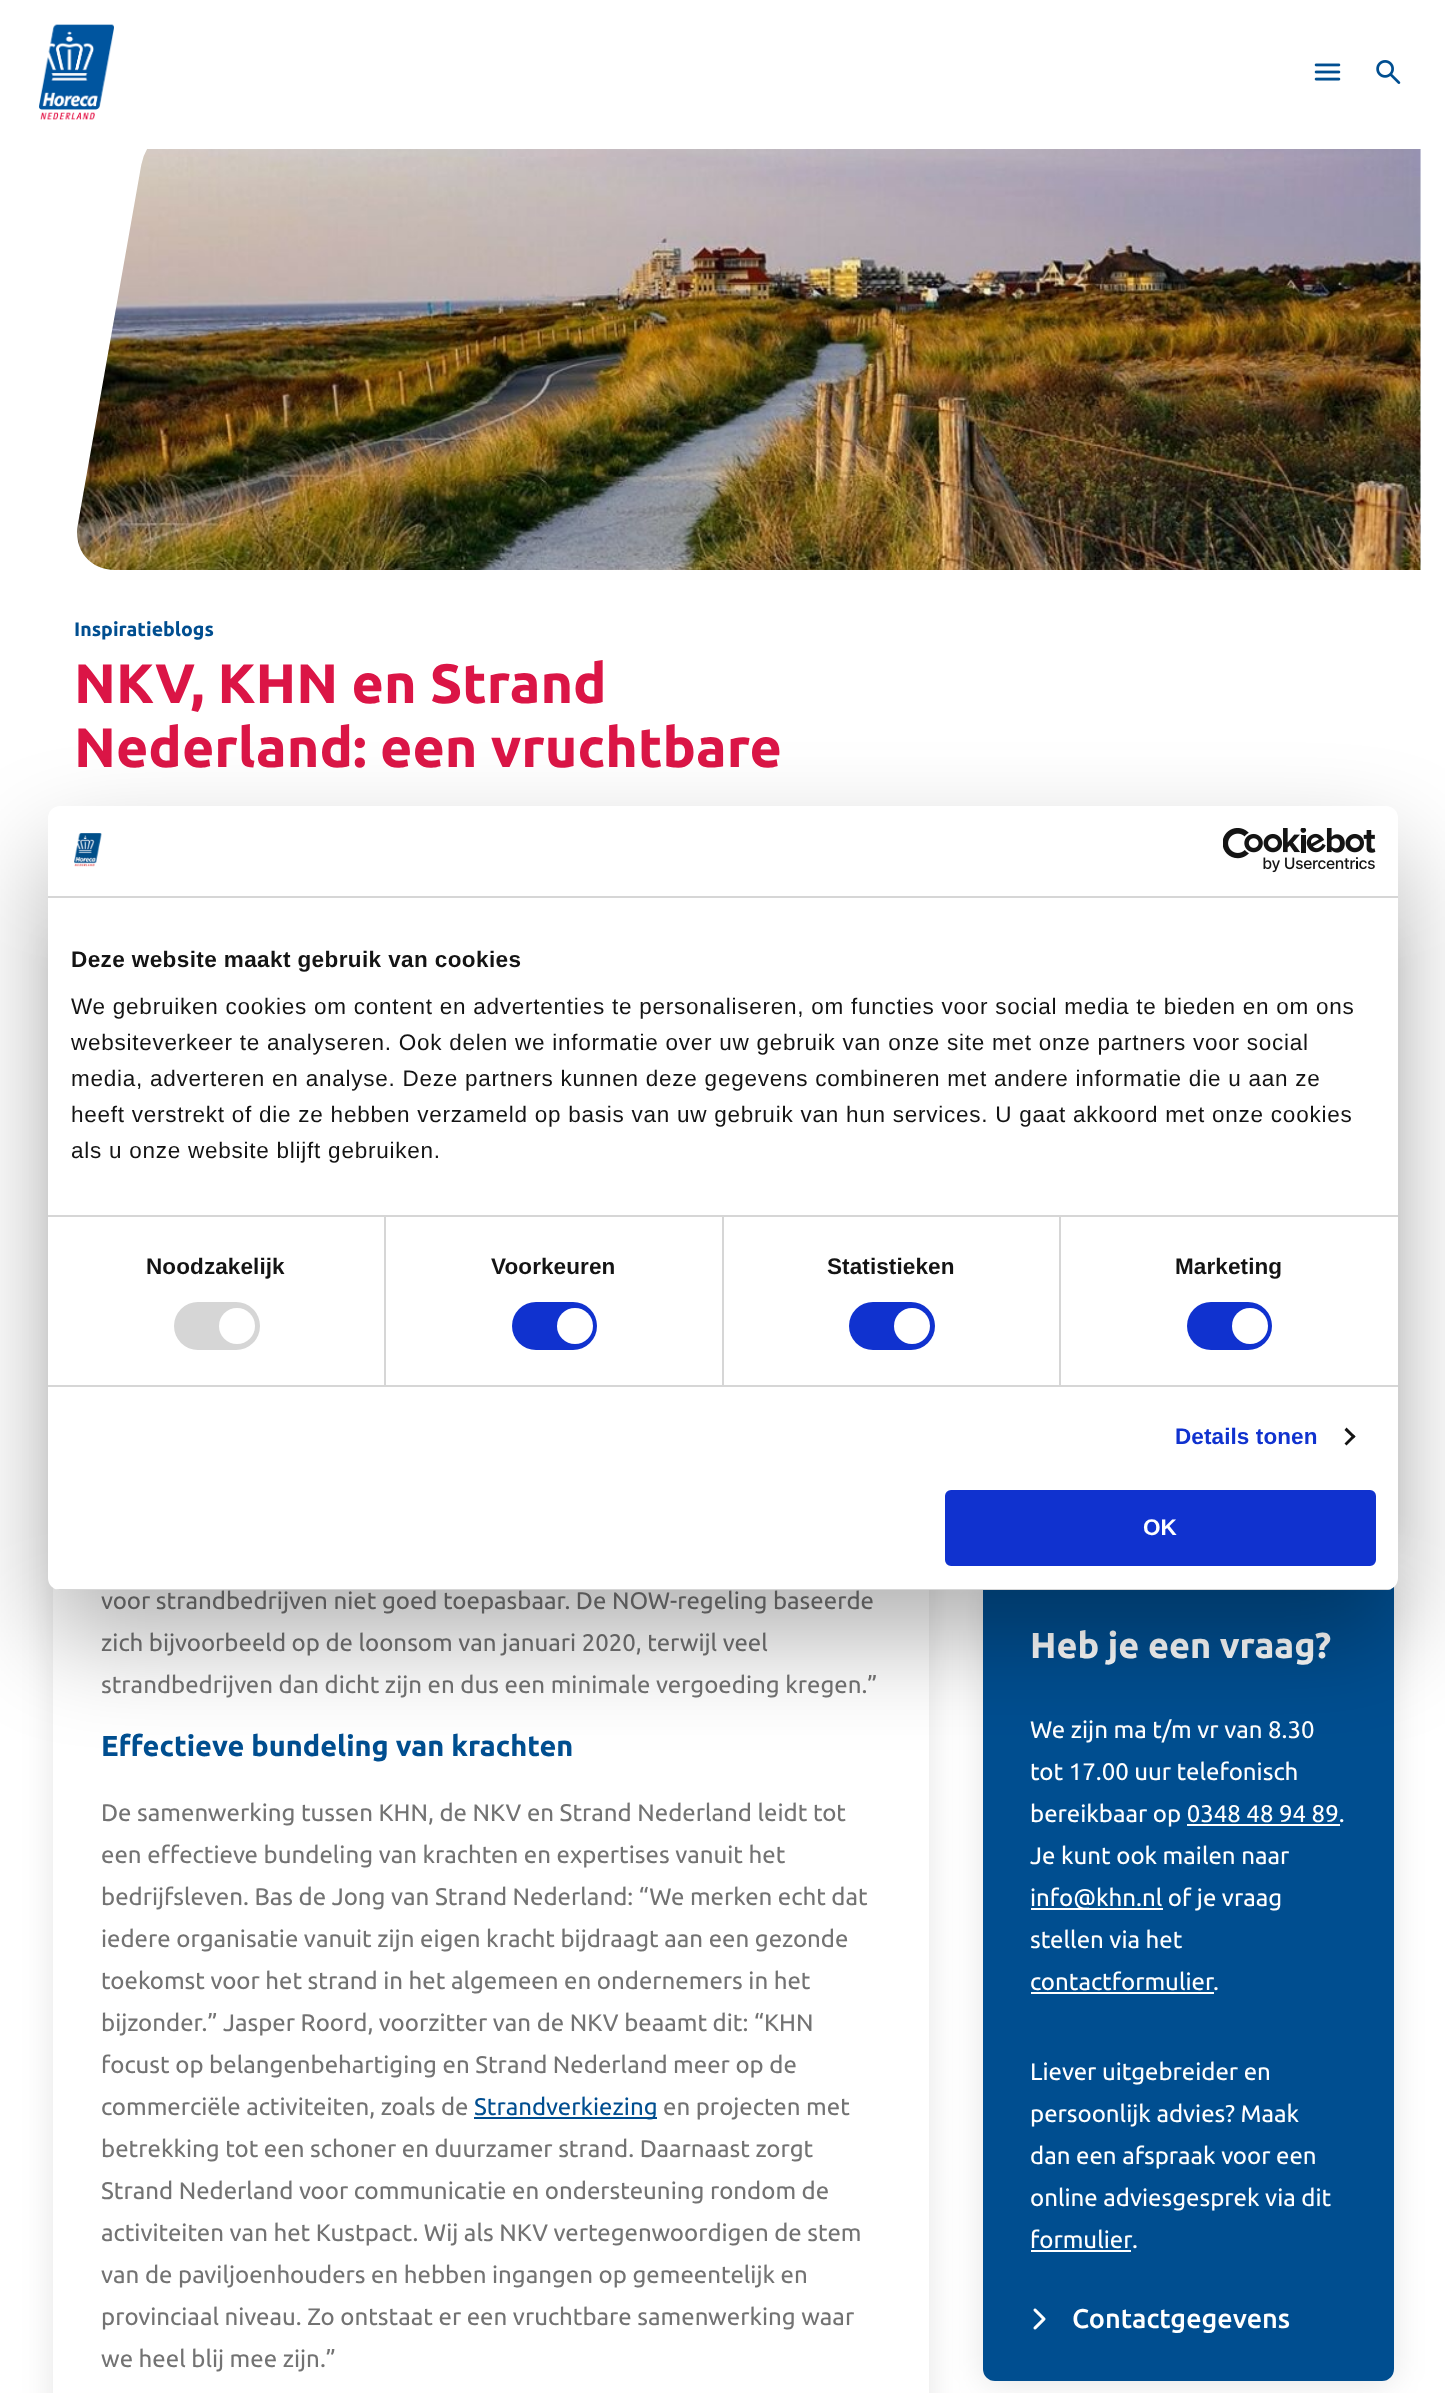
<svg xmlns="http://www.w3.org/2000/svg" width="1445" height="2393" viewBox="0 0 1445 2393">
  <defs>
    <clipPath id="clip1"><rect x="71" y="120" width="1350" height="450"/></clipPath>
    <filter id="blur1" x="-50%" y="-200%" width="200%" height="500%"><feGaussianBlur stdDeviation="16"/></filter>
    <filter id="blur2" x="-50%" y="-200%" width="200%" height="500%"><feGaussianBlur stdDeviation="51"/></filter>
    <clipPath id="clip2"><rect x="48" y="806" width="1350" height="784" rx="12"/></clipPath>
  </defs>
  <rect width="100%" height="100%" fill="#ffffff"/>
  <g clip-path="url(#clip1)">
    <path d="M195 120C170 120 146 140 142 165L78 525C74 550 90 570 115 570H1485C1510 570 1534 550 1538 525L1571 340V120H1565Z" fill="#eff5f8"/>
  </g>
  <rect x="148" y="120" width="1273" height="29" fill="#ffffff"/>
  <image x="39" y="24" width="75" height="96" href="img1.png"/>
  <image x="1314" y="63" width="27" height="18" href="img2.png"/>
  <image x="1376" y="60" width="25" height="24" href="img3.png"/>
  <image x="77" y="149" width="1344" height="421" href="img4.png"/>
  <text x="74" y="636" font-family="Ubuntu" font-size="19.5" font-weight="bold" fill="#004e90">Inspiratieblogs</text>
  <text x="74" y="703" font-family="Ubuntu" font-size="55.5" font-weight="bold" fill="#db1546">NKV, KHN en Strand</text>
  <text x="74" y="767" font-family="Ubuntu" font-size="55.5" font-weight="bold" fill="#db1546">Nederland: een vruchtbare</text>
  <rect x="53" y="941" width="876" height="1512" rx="12" fill="#000000" fill-opacity="0.1" filter="url(#blur1)"/>
  <rect x="53" y="1587" width="876" height="806" fill="#ffffff"/>
  <text x="101" y="1609" font-family="Ubuntu" font-size="24" fill="#737373">voor strandbedrijven niet goed toepasbaar. De NOW-regeling baseerde</text>
  <text x="101" y="1651" font-family="Ubuntu" font-size="24" fill="#737373">zich bijvoorbeeld op de loonsom van januari 2020, terwijl veel</text>
  <text x="101" y="1693" font-family="Ubuntu" font-size="24" fill="#737373">strandbedrijven dan dicht zijn en dus een minimale vergoeding kregen.”</text>
  <text x="101" y="1756" font-family="Ubuntu" font-size="28.9" font-weight="bold" fill="#004e90">Effectieve bundeling van krachten</text>
  <text x="101" y="1821" font-family="Ubuntu" font-size="24" fill="#737373">De samenwerking tussen KHN, de NKV en Strand Nederland leidt tot</text>
  <text x="101" y="1863" font-family="Ubuntu" font-size="24" fill="#737373">een effectieve bundeling van krachten en expertises vanuit het</text>
  <text x="101" y="1905" font-family="Ubuntu" font-size="24" fill="#737373">bedrijfsleven. Bas de Jong van Strand Nederland: “We merken echt dat</text>
  <text x="101" y="1947" font-family="Ubuntu" font-size="24" fill="#737373">iedere organisatie vanuit zijn eigen kracht bijdraagt aan een gezonde</text>
  <text x="101" y="1989" font-family="Ubuntu" font-size="24" fill="#737373">toekomst voor het strand in het algemeen en ondernemers in het</text>
  <text x="101" y="2031" font-family="Ubuntu" font-size="24" fill="#737373">bijzonder.” Jasper Roord, voorzitter van de NKV beaamt dit: “KHN</text>
  <text x="101" y="2073" font-family="Ubuntu" font-size="24" fill="#737373">focust op belangenbehartiging en Strand Nederland meer op de</text>
  <text x="101" y="2115" font-family="Ubuntu" font-size="24" fill="#737373">commerciële activiteiten, zoals de</text>
  <rect x="474" y="2117" width="183" height="2" fill="#004e90"/>
  <text x="474" y="2115" font-family="Ubuntu" font-size="24" fill="#004e90">Strandverkiezing</text>
  <text x="663" y="2115" font-family="Ubuntu" font-size="24" fill="#737373">en projecten met</text>
  <text x="101" y="2157" font-family="Ubuntu" font-size="24" fill="#737373">betrekking tot een schoner en duurzamer strand. Daarnaast zorgt</text>
  <text x="101" y="2199" font-family="Ubuntu" font-size="24" fill="#737373">Strand Nederland voor communicatie en ondersteuning rondom de</text>
  <text x="101" y="2241" font-family="Ubuntu" font-size="24" fill="#737373">activiteiten van het Kustpact. Wij als NKV vertegenwoordigen de stem</text>
  <text x="101" y="2283" font-family="Ubuntu" font-size="24" fill="#737373">van de paviljoenhouders en hebben ingangen op gemeentelijk en</text>
  <text x="101" y="2325" font-family="Ubuntu" font-size="24" fill="#737373">provinciaal niveau. Zo ontstaat er een vruchtbare samenwerking waar</text>
  <text x="101" y="2367" font-family="Ubuntu" font-size="24" fill="#737373">we heel blij mee zijn.”</text>
  <rect x="983" y="941" width="411" height="601" rx="12" fill="#000000" fill-opacity="0.1" filter="url(#blur1)"/>
  <rect x="983" y="1580" width="411" height="804" rx="12" fill="#000000" fill-opacity="0.1" filter="url(#blur1)"/>
  <rect x="983" y="1577" width="411" height="804" rx="12" fill="#004e90"/>
  <text x="1030" y="1658" font-family="Ubuntu" font-size="36" font-weight="bold" fill="#ffffff">Heb je een vraag?</text>
  <text x="1030" y="1738" font-family="Ubuntu" font-size="24" fill="#ffffff">We zijn ma t/m vr van 8.30</text>
  <text x="1030" y="1780" font-family="Ubuntu" font-size="24" fill="#ffffff">tot 17.00 uur telefonisch</text>
  <text x="1030" y="1822" font-family="Ubuntu" font-size="24" fill="#ffffff">bereikbaar op 0348 48 94 89.</text>
  <rect x="1187" y="1824" width="153" height="2" fill="#ffffff"/>
  <text x="1030" y="1864" font-family="Ubuntu" font-size="24" fill="#ffffff">Je kunt ook mailen naar</text>
  <rect x="1031" y="1908" width="132" height="2" fill="#ffffff"/>
  <text x="1030" y="1906" font-family="Ubuntu" font-size="24" fill="#ffffff">info@khn.nl of je vraag</text>
  <text x="1030" y="1948" font-family="Ubuntu" font-size="24" fill="#ffffff">stellen via het</text>
  <text x="1030" y="1990" font-family="Ubuntu" font-size="24" fill="#ffffff">contactformulier</text>
  <rect x="1031" y="1992" width="183" height="2" fill="#ffffff"/>
  <text x="1213" y="1990" font-family="Ubuntu" font-size="24" fill="#ffffff">.</text>
  <text x="1030" y="2080" font-family="Ubuntu" font-size="24" fill="#ffffff">Liever uitgebreider en</text>
  <text x="1030" y="2122" font-family="Ubuntu" font-size="24" fill="#ffffff">persoonlijk advies? Maak</text>
  <text x="1030" y="2164" font-family="Ubuntu" font-size="24" fill="#ffffff">dan een afspraak voor een</text>
  <text x="1030" y="2206" font-family="Ubuntu" font-size="24" fill="#ffffff">online adviesgesprek via dit</text>
  <text x="1030" y="2248" font-family="Ubuntu" font-size="24" fill="#ffffff">formulier</text>
  <rect x="1031" y="2250" width="100" height="2" fill="#ffffff"/>
  <text x="1132" y="2248" font-family="Ubuntu" font-size="24" fill="#ffffff">.</text>
  <image x="1033" y="2308" width="13" height="22" href="img5.png"/>
  <text x="1072" y="2328" font-family="Ubuntu" font-size="27" font-weight="500" fill="#ffffff">Contactgegevens</text>
  <rect x="48" y="854" width="1350" height="784" rx="12" fill="#000000" fill-opacity="0.3" filter="url(#blur2)"/>
  <rect x="48" y="806" width="1350" height="784" rx="12" fill="#ffffff"/>
  <rect x="48" y="896" width="1350" height="2" fill="#d6d6d6"/>
  <image x="74" y="833" width="28" height="34" href="img6.png"/>
  <image x="1223" y="828" width="153" height="45" href="img7.png"/>
  <rect x="48" y="1215" width="1350" height="2" fill="#d6d6d6"/>
  <text x="71" y="967" font-family="Liberation Sans" font-size="22.5" font-weight="bold" letter-spacing="0.4" fill="#141414">Deze website maakt gebruik van cookies</text>
  <text x="71" y="1014" font-family="Liberation Sans" font-size="22.5" letter-spacing="0.75" fill="#141414">We gebruiken cookies om content en advertenties te personaliseren, om functies voor social media te bieden en om ons</text>
  <text x="71" y="1050" font-family="Liberation Sans" font-size="22.5" letter-spacing="0.75" fill="#141414">websiteverkeer te analyseren. Ook delen we informatie over uw gebruik van onze site met onze partners voor social</text>
  <text x="71" y="1086" font-family="Liberation Sans" font-size="22.5" letter-spacing="0.75" fill="#141414">media, adverteren en analyse. Deze partners kunnen deze gegevens combineren met andere informatie die u aan ze</text>
  <text x="71" y="1122" font-family="Liberation Sans" font-size="22.5" letter-spacing="0.75" fill="#141414">heeft verstrekt of die ze hebben verzameld op basis van uw gebruik van hun services. U gaat akkoord met onze cookies</text>
  <text x="71" y="1158" font-family="Liberation Sans" font-size="22.5" letter-spacing="0.75" fill="#141414">als u onze website blijft gebruiken.</text>
  <rect x="48" y="1385" width="1350" height="2" fill="#d6d6d6"/>
  <rect x="384" y="1217" width="2" height="168" fill="#d6d6d6"/>
  <text x="146" y="1274" font-family="Liberation Sans" font-size="22.5" font-weight="bold" letter-spacing="0.1" fill="#141414">Noodzakelijk</text>
  <rect x="174" y="1302" width="86" height="48" rx="24" fill="#d6d6d6"/>
  <circle cx="237" cy="1326" r="18" fill="#ffffff"/>
  <rect x="722" y="1217" width="2" height="168" fill="#d6d6d6"/>
  <text x="491" y="1274" font-family="Liberation Sans" font-size="22.5" font-weight="bold" letter-spacing="0.1" fill="#141414">Voorkeuren</text>
  <rect x="512" y="1302" width="85" height="48" rx="24" fill="#1032cf"/>
  <circle cx="575" cy="1326" r="18" fill="#ffffff"/>
  <rect x="1059" y="1217" width="2" height="168" fill="#d6d6d6"/>
  <text x="827" y="1274" font-family="Liberation Sans" font-size="22.5" font-weight="bold" letter-spacing="0.1" fill="#141414">Statistieken</text>
  <rect x="849" y="1302" width="86" height="48" rx="24" fill="#1032cf"/>
  <circle cx="912" cy="1326" r="18" fill="#ffffff"/>
  <text x="1175" y="1274" font-family="Liberation Sans" font-size="22.5" font-weight="bold" letter-spacing="0.1" fill="#141414">Marketing</text>
  <rect x="1187" y="1302" width="85" height="48" rx="24" fill="#1032cf"/>
  <circle cx="1250" cy="1326" r="18" fill="#ffffff"/>
  <text x="1175" y="1444" font-family="Liberation Sans" font-size="22.5" font-weight="bold" letter-spacing="0.1" fill="#1032cf">Details tonen</text>
  <path d="M1346.5 1427.5L1355.5 1436.5L1353.5 1438.5L1344.5 1430Z" fill="#141414"/>
  <path d="M1353.5 1434.5L1355.5 1436.5L1346.5 1445.5L1344.5 1443.5Z" fill="#141414"/>
  <g clip-path="url(#clip2)">
    <rect x="48" y="1589" width="1350" height="1" fill="#d6d6d6"/>
  </g>
  <rect x="946.5" y="1491.5" width="428" height="73" rx="4.5" fill="#1032cf" stroke="#1032cf" stroke-width="3"/>
  <text x="1143" y="1535" font-family="Liberation Sans" font-size="22.5" font-weight="bold" fill="#ffffff">OK</text>
</svg>
